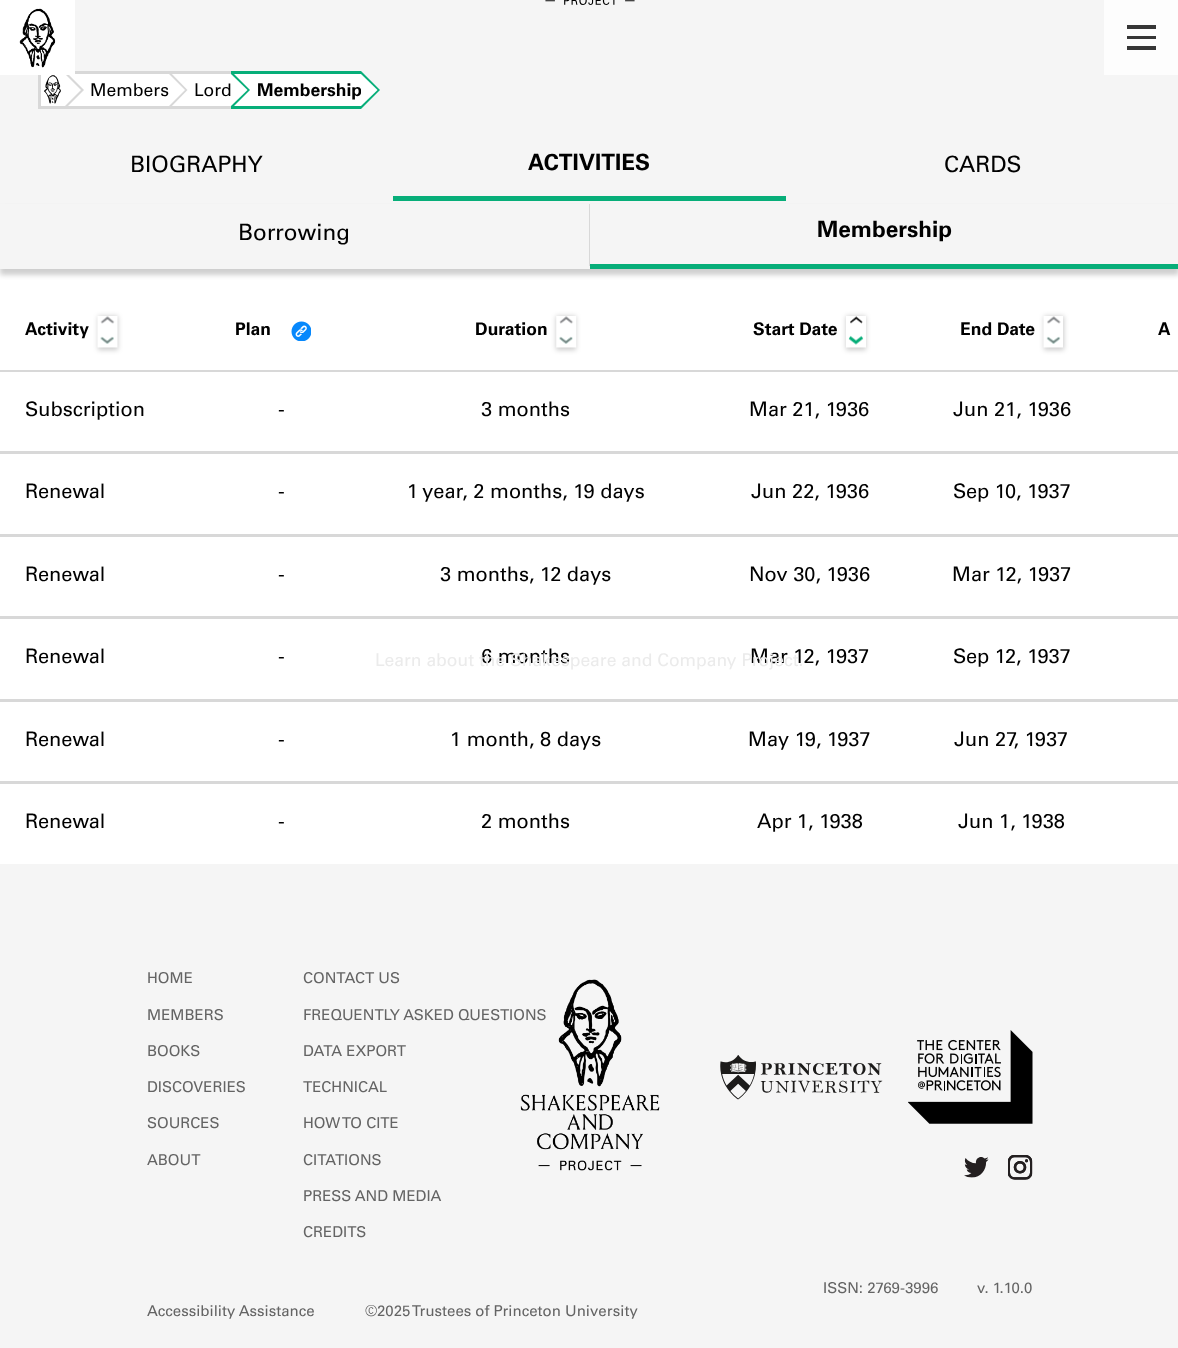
<svg xmlns="http://www.w3.org/2000/svg" width="1178" height="1348" viewBox="0 0 1178 1348">
  <defs>
    <filter id="blur1" x="-50%" y="-200%" width="200%" height="500%"><feGaussianBlur stdDeviation="2.5"/></filter>
  </defs>
  <rect width="100%" height="100%" fill="#f5f5f5"/>
  <image x="545" y="0" width="90" height="5" href="img1.png"/>
  <rect x="0" y="372" width="1178" height="492" fill="#ffffff"/>
  <rect x="41" y="75" width="24" height="31" fill="#ffffff"/>
  <rect x="38" y="106" width="193" height="3" fill="#d8d8d8"/>
  <rect x="38" y="71" width="3" height="38" fill="#d8d8d8"/>
  <rect x="68" y="74" width="101" height="32" fill="#ffffff"/>
  <rect x="75" y="71" width="156" height="3" fill="#d8d8d8"/>
  <path d="M65 109V71L84 90Z" fill="#d8d8d8"/>
  <path d="M65 106V74L81 90Z" fill="#ffffff"/>
  <image x="44" y="75" width="17" height="29" href="img2.png"/>
  <rect x="172" y="74" width="59" height="32" fill="#ffffff"/>
  <path d="M169 109V71L187.5 90Z" fill="#d8d8d8"/>
  <text x="90" y="96" font-family="Univers" font-size="17.5" fill="#000000">Members</text>
  <path d="M169 106V74L185 90Z" fill="#ffffff"/>
  <rect x="234" y="74" width="127" height="32" fill="#ffffff"/>
  <rect x="231" y="71" width="130" height="3" fill="#07ae79"/>
  <rect x="231" y="106" width="130" height="3" fill="#07ae79"/>
  <path d="M231 109V71L250 90Z" fill="#07ae79"/>
  <text x="194" y="96" font-family="Univers" font-size="17.5" fill="#000000">Lord</text>
  <path d="M231 106V74L247.5 90Z" fill="#ffffff"/>
  <text x="257" y="96" font-family="Univers" font-size="17.5" font-weight="bold" fill="#000000">Membership</text>
  <path d="M361 109V71L380 90Z" fill="#07ae79"/>
  <path d="M361 106V74L377.5 90Z" fill="#ffffff"/>
  <text x="130" y="172" font-family="Univers" font-size="22.5" fill="#000000">BIOGRAPHY</text>
  <rect x="393" y="196" width="393" height="5" fill="#07ae79"/>
  <text x="528" y="170" font-family="Univers" font-size="22.5" font-weight="bold" fill="#000000">ACTIVITIES</text>
  <text x="944" y="172" font-family="Univers" font-size="22.5" fill="#000000">CARDS</text>
  <rect x="0" y="269" width="1178" height="101" fill="#ffffff"/>
  <rect x="0" y="208" width="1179" height="67" fill="#000000" fill-opacity="0.19" filter="url(#blur1)"/>
  <rect x="0" y="204" width="1178" height="65" fill="#f5f5f5"/>
  <rect x="589" y="204" width="1" height="62" fill="#d8d8d8"/>
  <text x="238" y="240" font-family="Univers" font-size="22.5" fill="#000000">Borrowing</text>
  <rect x="590" y="264" width="588" height="5" fill="#07ae79"/>
  <text x="817" y="237" font-family="Univers" font-size="22.5" font-weight="bold" fill="#000000">Membership</text>
  <text x="25" y="335" font-family="Univers" font-size="17.5" font-weight="bold" fill="#000000">Activity</text>
  <rect x="98" y="316" width="20" height="34" fill="#000000" fill-opacity="0.2" filter="url(#blur1)"/>
  <image x="97" y="316" width="21" height="32" href="img3.png"/>
  <text x="235" y="335" font-family="Univers" font-size="17.5" font-weight="bold" fill="#000000">Plan</text>
  <image x="291" y="321" width="20" height="20" href="img4.png"/>
  <text x="475" y="335" font-family="Univers" font-size="17.5" font-weight="bold" fill="#000000">Duration</text>
  <rect x="556" y="316" width="20" height="34" fill="#000000" fill-opacity="0.2" filter="url(#blur1)"/>
  <image x="556" y="316" width="21" height="32" href="img5.png"/>
  <text x="753" y="335" font-family="Univers" font-size="17.5" font-weight="bold" fill="#000000">Start Date</text>
  <rect x="846" y="316" width="20" height="34" fill="#000000" fill-opacity="0.2" filter="url(#blur1)"/>
  <image x="846" y="316" width="20" height="32" href="img6.png"/>
  <text x="960" y="335" font-family="Univers" font-size="17.5" font-weight="bold" fill="#000000">End Date</text>
  <rect x="1044" y="316" width="20" height="34" fill="#000000" fill-opacity="0.2" filter="url(#blur1)"/>
  <image x="1043" y="316" width="20" height="32" href="img7.png"/>
  <text x="1158" y="335" font-family="Univers" font-size="17.5" font-weight="bold" fill="#000000">A</text>
  <rect x="0" y="370" width="1178" height="2" fill="#d8d8d8"/>
  <text x="25" y="416" font-family="Univers" font-size="20" fill="#000000">Subscription</text>
  <text x="278" y="416" font-family="Univers" font-size="20" fill="#000000">-</text>
  <text x="481" y="416" font-family="Univers" font-size="20" fill="#000000">3 months</text>
  <text x="749" y="416" font-family="Univers" font-size="20" fill="#000000">Mar 21, 1936</text>
  <text x="953" y="416" font-family="Univers" font-size="20" fill="#000000">Jun 21, 1936</text>
  <rect x="0" y="451" width="1178" height="3" fill="#d8d8d8"/>
  <text x="25" y="498" font-family="Univers" font-size="20" fill="#000000">Renewal</text>
  <text x="278" y="498" font-family="Univers" font-size="20" fill="#000000">-</text>
  <text x="407" y="498" font-family="Univers" font-size="20" fill="#000000">1 year, 2 months, 19 days</text>
  <text x="751" y="498" font-family="Univers" font-size="20" fill="#000000">Jun 22, 1936</text>
  <text x="953" y="498" font-family="Univers" font-size="20" fill="#000000">Sep 10, 1937</text>
  <rect x="0" y="534" width="1178" height="3" fill="#d8d8d8"/>
  <text x="25" y="581" font-family="Univers" font-size="20" fill="#000000">Renewal</text>
  <text x="278" y="581" font-family="Univers" font-size="20" fill="#000000">-</text>
  <text x="440" y="581" font-family="Univers" font-size="20" fill="#000000">3 months, 12 days</text>
  <text x="749" y="581" font-family="Univers" font-size="20" fill="#000000">Nov 30, 1936</text>
  <text x="952" y="581" font-family="Univers" font-size="20" fill="#000000">Mar 12, 1937</text>
  <rect x="0" y="616" width="1178" height="3" fill="#d8d8d8"/>
  <text x="25" y="663" font-family="Univers" font-size="20" fill="#000000">Renewal</text>
  <text x="278" y="663" font-family="Univers" font-size="20" fill="#000000">-</text>
  <text x="481" y="663" font-family="Univers" font-size="20" fill="#000000">6 months</text>
  <text x="750" y="663" font-family="Univers" font-size="20" fill="#000000">Mar 12, 1937</text>
  <text x="953" y="663" font-family="Univers" font-size="20" fill="#000000">Sep 12, 1937</text>
  <rect x="0" y="699" width="1178" height="3" fill="#d8d8d8"/>
  <text x="25" y="746" font-family="Univers" font-size="20" fill="#000000">Renewal</text>
  <text x="278" y="746" font-family="Univers" font-size="20" fill="#000000">-</text>
  <text x="450" y="746" font-family="Univers" font-size="20" fill="#000000">1 month, 8 days</text>
  <text x="748" y="746" font-family="Univers" font-size="20" fill="#000000">May 19, 1937</text>
  <text x="954" y="746" font-family="Univers" font-size="20" fill="#000000">Jun 27, 1937</text>
  <rect x="0" y="781" width="1178" height="3" fill="#d8d8d8"/>
  <text x="25" y="828" font-family="Univers" font-size="20" fill="#000000">Renewal</text>
  <text x="278" y="828" font-family="Univers" font-size="20" fill="#000000">-</text>
  <text x="481" y="828" font-family="Univers" font-size="20" fill="#000000">2 months</text>
  <text x="757" y="828" font-family="Univers" font-size="20" fill="#000000">Apr 1, 1938</text>
  <text x="958" y="828" font-family="Univers" font-size="20" fill="#000000">Jun 1, 1938</text>
  <rect x="0" y="0" width="75" height="75" fill="#ffffff"/>
  <image x="19" y="8" width="37" height="60" href="img8.png"/>
  <rect x="1104" y="0" width="74" height="75" fill="#fdfdfd"/>
  <rect x="1127" y="25" width="29" height="4" fill="#363636"/>
  <rect x="1127" y="36" width="29" height="3" fill="#363636"/>
  <rect x="1127" y="46" width="29" height="4" fill="#363636"/>
  <text x="375" y="666" font-family="Univers" font-size="17.5" fill="#ebebeb">Learn about the Shakespeare and Company Project.</text>
  <text x="147" y="983" font-family="Univers" font-size="15" fill="#646464">HOME</text>
  <text x="147" y="1020" font-family="Univers" font-size="15" fill="#646464">MEMBERS</text>
  <text x="147" y="1056" font-family="Univers" font-size="15" fill="#646464">BOOKS</text>
  <text x="147" y="1092" font-family="Univers" font-size="15" fill="#646464">DISCOVERIES</text>
  <text x="147" y="1128" font-family="Univers" font-size="15" fill="#646464">SOURCES</text>
  <text x="147" y="1165" font-family="Univers" font-size="15" fill="#646464">ABOUT</text>
  <text x="303" y="983" font-family="Univers" font-size="15" fill="#646464">CONTACT US</text>
  <text x="303" y="1020" font-family="Univers" font-size="15" fill="#646464">FREQUENTLY ASKED QUESTIONS</text>
  <text x="303" y="1056" font-family="Univers" font-size="15" fill="#646464">DATA EXPORT</text>
  <text x="303" y="1092" font-family="Univers" font-size="15" fill="#646464">TECHNICAL</text>
  <text x="303" y="1128" font-family="Univers" font-size="15" fill="#646464">HOW TO CITE</text>
  <text x="303" y="1165" font-family="Univers" font-size="15" fill="#646464">CITATIONS</text>
  <text x="303" y="1201" font-family="Univers" font-size="15" fill="#646464">PRESS AND MEDIA</text>
  <text x="303" y="1237" font-family="Univers" font-size="15" fill="#646464">CREDITS</text>
  <image x="520" y="979" width="140" height="192" href="img9.png"/>
  <image x="720" y="1055" width="163" height="45" href="img10.png"/>
  <image x="908" y="1030" width="125" height="94" href="img11.png"/>
  <image x="964" y="1157" width="25" height="21" href="img12.png"/>
  <image x="1008" y="1155" width="25" height="25" href="img13.png"/>
  <text x="823" y="1293" font-family="Univers" font-size="15" fill="#646464">ISSN: 2769-3996</text>
  <text x="977" y="1293" font-family="Univers" font-size="15" fill="#646464">v. 1.10.0</text>
  <text x="147" y="1316" font-family="Univers" font-size="15" fill="#646464">Accessibility Assistance</text>
  <text x="365" y="1316" font-family="Univers" font-size="15" fill="#646464">©2025 Trustees of Princeton University</text>
</svg>
